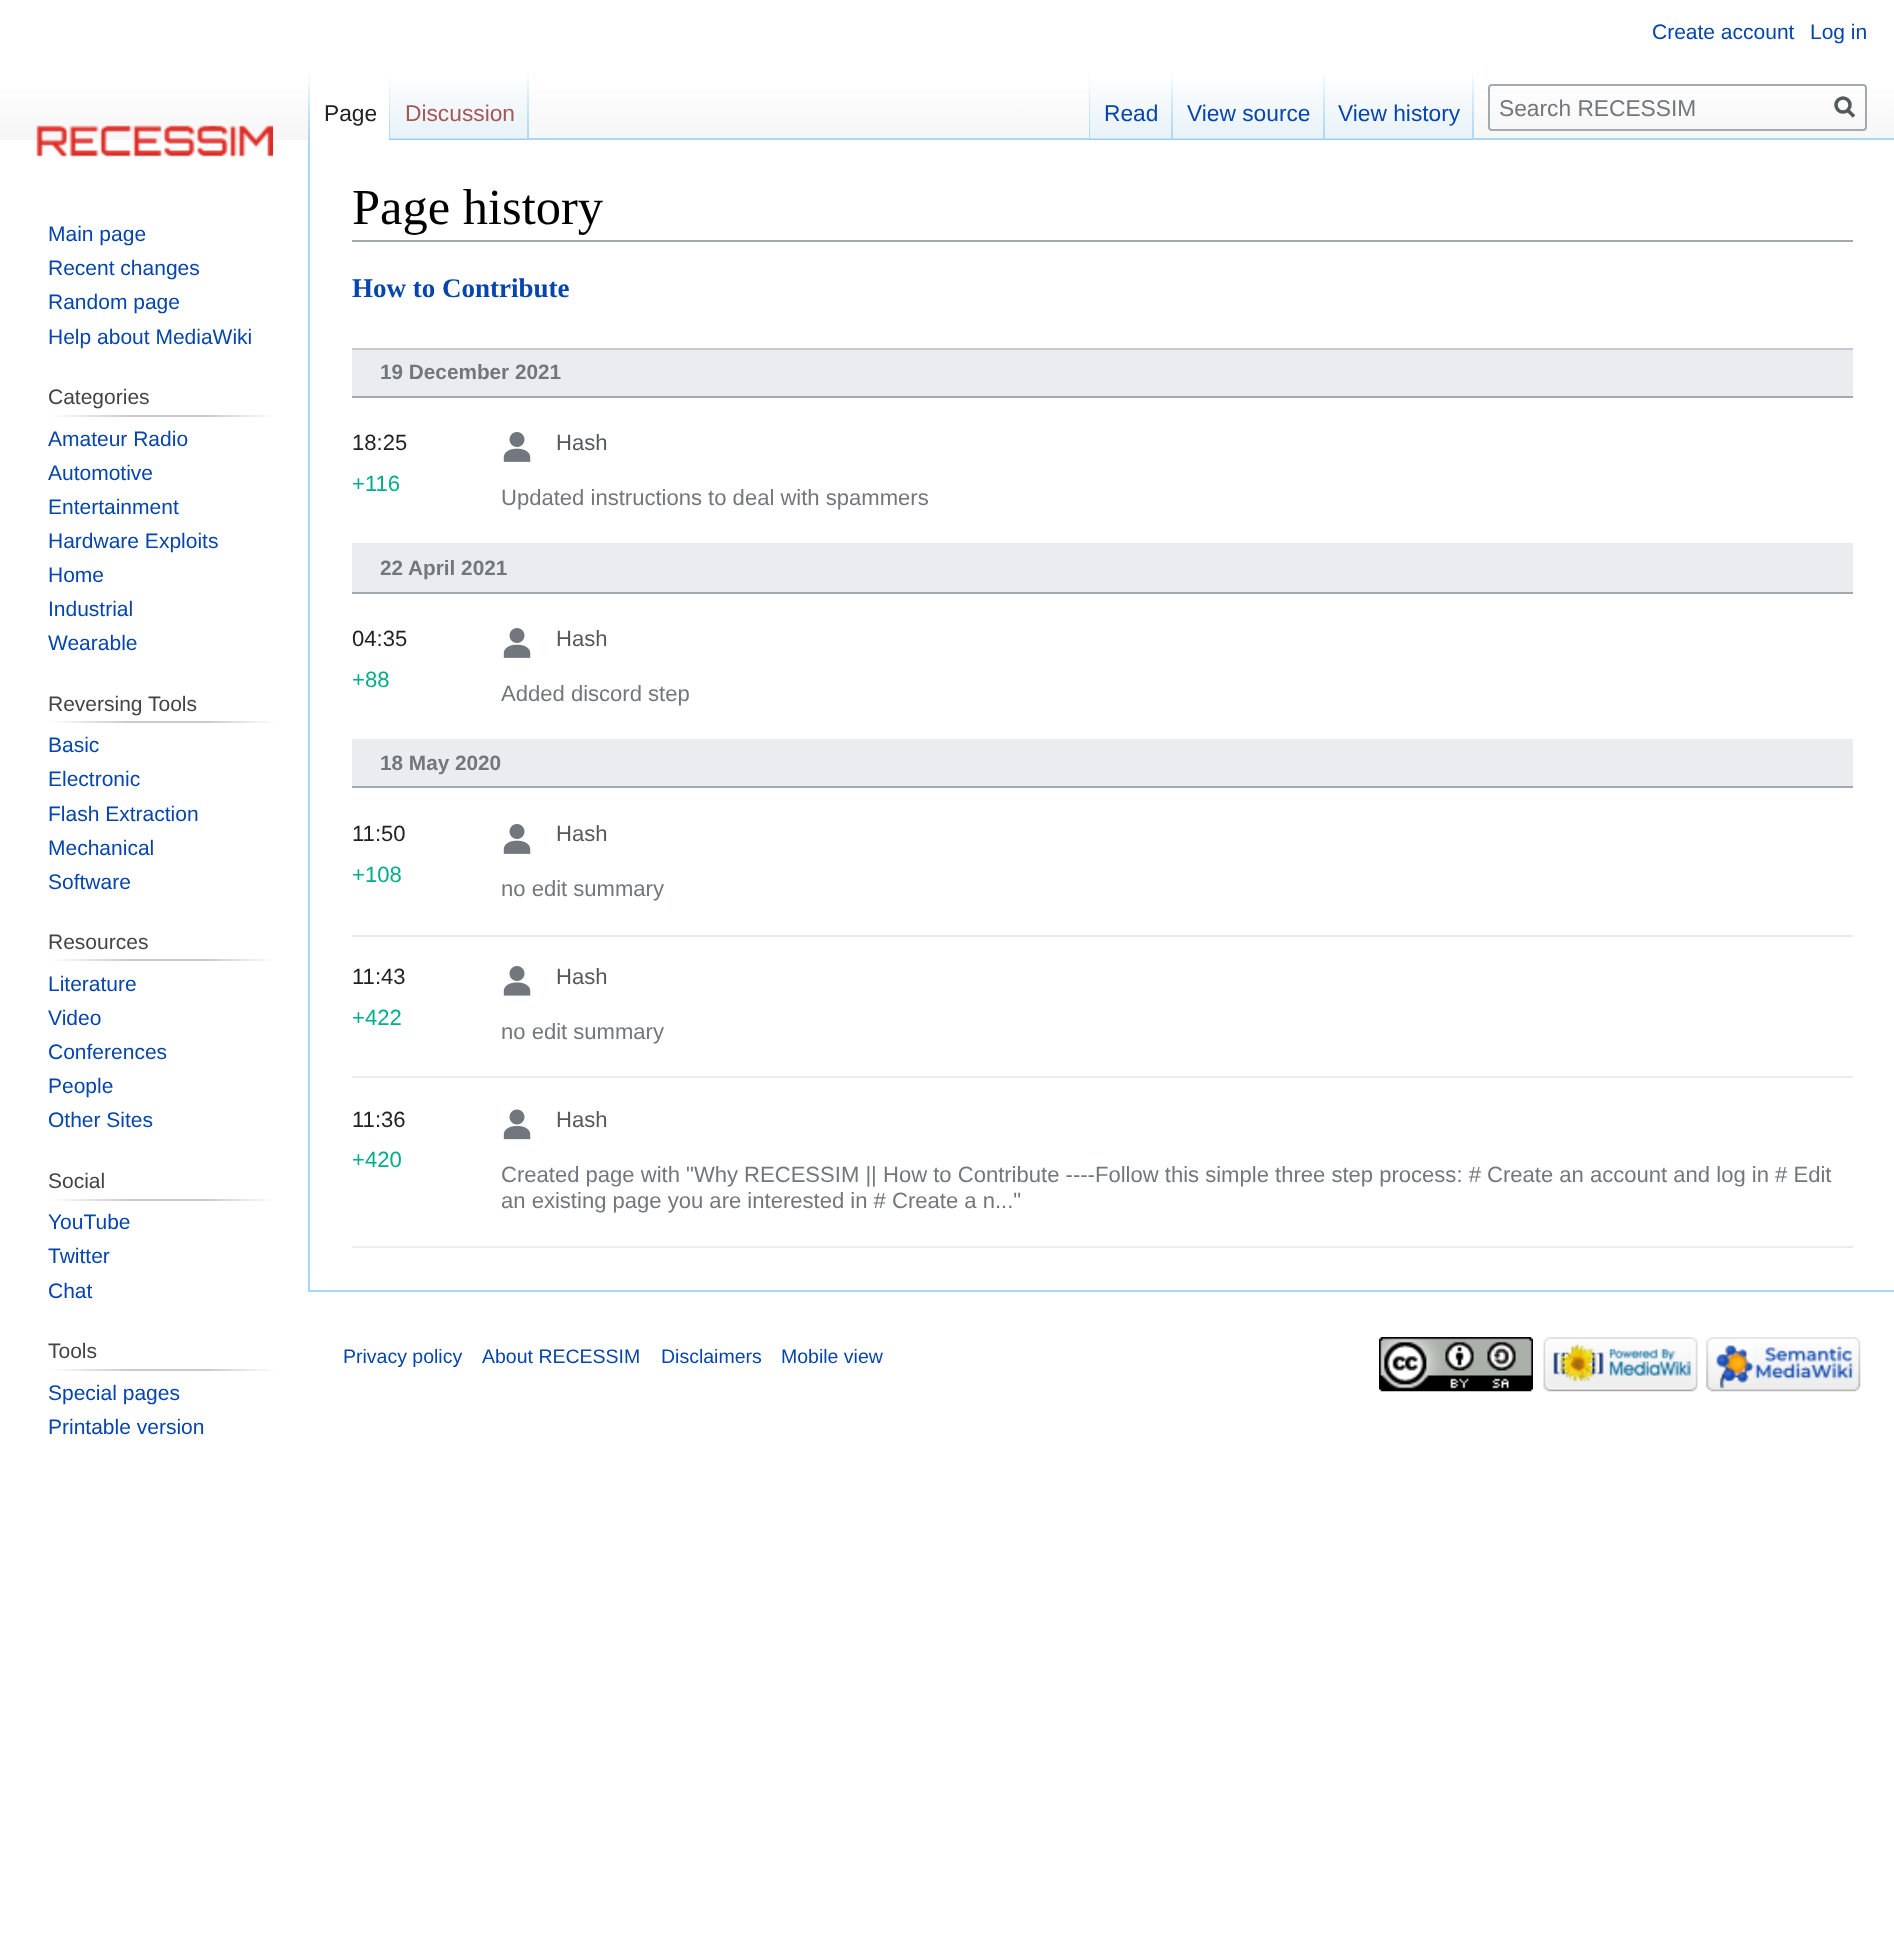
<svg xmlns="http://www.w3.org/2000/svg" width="1894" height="1935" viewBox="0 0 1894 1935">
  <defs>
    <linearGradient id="g1" gradientUnits="userSpaceOnUse" x1="948" y1="0" x2="948" y2="140"><stop offset="0.5" stop-color="#ffffff"/><stop offset="1" stop-color="#f6f6f6"/></linearGradient>
    <linearGradient id="g2" gradientUnits="userSpaceOnUse" x1="309" y1="70" x2="309" y2="140"><stop offset="0" stop-color="#a7d7f9" stop-opacity="0"/><stop offset="1" stop-color="#a7d7f9"/></linearGradient>
    <linearGradient id="g3" gradientUnits="userSpaceOnUse" x1="389" y1="70" x2="389" y2="140"><stop offset="0" stop-color="#ffffff"/><stop offset="1" stop-color="#a7d7f9"/></linearGradient>
    <linearGradient id="g4" gradientUnits="userSpaceOnUse" x1="459" y1="140" x2="459" y2="70"><stop offset="0" stop-color="#77c1f6"/><stop offset="0.03" stop-color="#e8f2f8"/><stop offset="1" stop-color="#ffffff"/></linearGradient>
    <linearGradient id="g5" gradientUnits="userSpaceOnUse" x1="528" y1="70" x2="528" y2="140"><stop offset="0" stop-color="#a7d7f9" stop-opacity="0"/><stop offset="1" stop-color="#a7d7f9"/></linearGradient>
    <linearGradient id="g6" gradientUnits="userSpaceOnUse" x1="1089" y1="70" x2="1089" y2="140"><stop offset="0" stop-color="#a7d7f9" stop-opacity="0"/><stop offset="1" stop-color="#a7d7f9"/></linearGradient>
    <linearGradient id="g7" gradientUnits="userSpaceOnUse" x1="1131" y1="140" x2="1131" y2="70"><stop offset="0" stop-color="#77c1f6"/><stop offset="0.03" stop-color="#e8f2f8"/><stop offset="1" stop-color="#ffffff"/></linearGradient>
    <linearGradient id="g8" gradientUnits="userSpaceOnUse" x1="1172" y1="70" x2="1172" y2="140"><stop offset="0" stop-color="#a7d7f9" stop-opacity="0"/><stop offset="1" stop-color="#a7d7f9"/></linearGradient>
    <linearGradient id="g9" gradientUnits="userSpaceOnUse" x1="1249" y1="140" x2="1249" y2="70"><stop offset="0" stop-color="#77c1f6"/><stop offset="0.03" stop-color="#e8f2f8"/><stop offset="1" stop-color="#ffffff"/></linearGradient>
    <linearGradient id="g10" gradientUnits="userSpaceOnUse" x1="1324" y1="70" x2="1324" y2="140"><stop offset="0" stop-color="#a7d7f9" stop-opacity="0"/><stop offset="1" stop-color="#a7d7f9"/></linearGradient>
    <linearGradient id="g11" gradientUnits="userSpaceOnUse" x1="1399" y1="140" x2="1399" y2="70"><stop offset="0" stop-color="#77c1f6"/><stop offset="0.03" stop-color="#e8f2f8"/><stop offset="1" stop-color="#ffffff"/></linearGradient>
    <linearGradient id="g12" gradientUnits="userSpaceOnUse" x1="1473" y1="70" x2="1473" y2="140"><stop offset="0" stop-color="#a7d7f9" stop-opacity="0"/><stop offset="1" stop-color="#a7d7f9"/></linearGradient>
    <linearGradient id="g13" gradientUnits="userSpaceOnUse" x1="47" y1="416" x2="277" y2="416"><stop offset="0" stop-color="#ffffff"/><stop offset="0.35" stop-color="#c8ccd1"/><stop offset="0.7" stop-color="#c8ccd1"/><stop offset="1" stop-color="#ffffff"/></linearGradient>
    <linearGradient id="g14" gradientUnits="userSpaceOnUse" x1="47" y1="722" x2="277" y2="722"><stop offset="0" stop-color="#ffffff"/><stop offset="0.35" stop-color="#c8ccd1"/><stop offset="0.7" stop-color="#c8ccd1"/><stop offset="1" stop-color="#ffffff"/></linearGradient>
    <linearGradient id="g15" gradientUnits="userSpaceOnUse" x1="47" y1="960" x2="277" y2="960"><stop offset="0" stop-color="#ffffff"/><stop offset="0.35" stop-color="#c8ccd1"/><stop offset="0.7" stop-color="#c8ccd1"/><stop offset="1" stop-color="#ffffff"/></linearGradient>
    <linearGradient id="g16" gradientUnits="userSpaceOnUse" x1="47" y1="1200" x2="277" y2="1200"><stop offset="0" stop-color="#ffffff"/><stop offset="0.35" stop-color="#c8ccd1"/><stop offset="0.7" stop-color="#c8ccd1"/><stop offset="1" stop-color="#ffffff"/></linearGradient>
    <linearGradient id="g17" gradientUnits="userSpaceOnUse" x1="47" y1="1369" x2="277" y2="1369"><stop offset="0" stop-color="#ffffff"/><stop offset="0.35" stop-color="#c8ccd1"/><stop offset="0.7" stop-color="#c8ccd1"/><stop offset="1" stop-color="#ffffff"/></linearGradient>
  </defs>
  <rect width="100%" height="100%" fill="#ffffff"/>
  <text x="1652" y="39" font-family="Liberation Sans" font-size="21" fill="#0645ad">Create account</text>
  <text x="1810" y="39" font-family="Liberation Sans" font-size="21" fill="#0645ad">Log in</text>
  <rect x="0" y="89" width="1894" height="51" fill="url(#g1)"/>
  <rect x="308" y="1290" width="1586" height="2" fill="#a7d7f9"/>
  <rect x="308" y="138" width="2" height="1154" fill="#a7d7f9"/>
  <rect x="308" y="70" width="2" height="70" fill="url(#g2)"/>
  <rect x="310" y="89" width="79" height="51" fill="#ffffff"/>
  <rect x="389" y="70" width="1" height="70" fill="url(#g3)"/>
  <text x="324" y="121" font-family="Liberation Sans" font-size="22.75" fill="#222222">Page</text>
  <rect x="390" y="80" width="139" height="60" fill="url(#g4)"/>
  <rect x="527" y="70" width="2" height="70" fill="url(#g5)"/>
  <text x="405" y="121" font-family="Liberation Sans" font-size="22.75" fill="#a55858">Discussion</text>
  <rect x="529" y="138" width="1365" height="2" fill="#a7d7f9"/>
  <rect x="1089" y="70" width="1" height="70" fill="url(#g6)"/>
  <rect x="1090" y="80" width="83" height="60" fill="url(#g7)"/>
  <rect x="1171" y="70" width="2" height="70" fill="url(#g8)"/>
  <text x="1104" y="121" font-family="Liberation Sans" font-size="22.75" fill="#0645ad">Read</text>
  <rect x="1173" y="80" width="152" height="60" fill="url(#g9)"/>
  <rect x="1323" y="70" width="2" height="70" fill="url(#g10)"/>
  <text x="1187" y="121" font-family="Liberation Sans" font-size="22.75" fill="#0645ad">View source</text>
  <rect x="1325" y="80" width="149" height="60" fill="url(#g11)"/>
  <rect x="1472" y="70" width="2" height="70" fill="url(#g12)"/>
  <text x="1338" y="121" font-family="Liberation Sans" font-size="22.75" fill="#0645ad">View history</text>
  <rect x="1489" y="85" width="377" height="45" rx="3" fill="none" stroke="#a2a9b1" stroke-width="2"/>
  <text x="1499" y="116" font-family="Liberation Sans" font-size="22.75" fill="#72777d">Search RECESSIM</text>
  <path d="M1854 116.5L1847 109.5" fill="none" stroke="#54595d" stroke-width="3.5"/>
  <circle cx="1843" cy="105" r="7" fill="none" stroke="#54595d" stroke-width="3.5"/>
  <image x="36" y="125" width="237" height="32" href="img1.png"/>
  <text x="48" y="241" font-family="Liberation Sans" font-size="21" fill="#0645ad">Main page</text>
  <text x="48" y="275" font-family="Liberation Sans" font-size="21" fill="#0645ad">Recent changes</text>
  <text x="48" y="309" font-family="Liberation Sans" font-size="21" fill="#0645ad">Random page</text>
  <text x="48" y="344" font-family="Liberation Sans" font-size="21" fill="#0645ad">Help about MediaWiki</text>
  <text x="48" y="404" font-family="Liberation Sans" font-size="21" fill="#444444">Categories</text>
  <rect x="47" y="415" width="230" height="2" fill="url(#g13)"/>
  <text x="48" y="446" font-family="Liberation Sans" font-size="21" fill="#0645ad">Amateur Radio</text>
  <text x="48" y="480" font-family="Liberation Sans" font-size="21" fill="#0645ad">Automotive</text>
  <text x="48" y="514" font-family="Liberation Sans" font-size="21" fill="#0645ad">Entertainment</text>
  <text x="48" y="548" font-family="Liberation Sans" font-size="21" fill="#0645ad">Hardware Exploits</text>
  <text x="48" y="582" font-family="Liberation Sans" font-size="21" fill="#0645ad">Home</text>
  <text x="48" y="616" font-family="Liberation Sans" font-size="21" fill="#0645ad">Industrial</text>
  <text x="48" y="650" font-family="Liberation Sans" font-size="21" fill="#0645ad">Wearable</text>
  <text x="48" y="711" font-family="Liberation Sans" font-size="21" fill="#444444">Reversing Tools</text>
  <rect x="47" y="721" width="230" height="2" fill="url(#g14)"/>
  <text x="48" y="752" font-family="Liberation Sans" font-size="21" fill="#0645ad">Basic</text>
  <text x="48" y="786" font-family="Liberation Sans" font-size="21" fill="#0645ad">Electronic</text>
  <text x="48" y="821" font-family="Liberation Sans" font-size="21" fill="#0645ad">Flash Extraction</text>
  <text x="48" y="855" font-family="Liberation Sans" font-size="21" fill="#0645ad">Mechanical</text>
  <text x="48" y="889" font-family="Liberation Sans" font-size="21" fill="#0645ad">Software</text>
  <text x="48" y="949" font-family="Liberation Sans" font-size="21" fill="#444444">Resources</text>
  <rect x="47" y="959" width="230" height="2" fill="url(#g15)"/>
  <text x="48" y="991" font-family="Liberation Sans" font-size="21" fill="#0645ad">Literature</text>
  <text x="48" y="1025" font-family="Liberation Sans" font-size="21" fill="#0645ad">Video</text>
  <text x="48" y="1059" font-family="Liberation Sans" font-size="21" fill="#0645ad">Conferences</text>
  <text x="48" y="1093" font-family="Liberation Sans" font-size="21" fill="#0645ad">People</text>
  <text x="48" y="1127" font-family="Liberation Sans" font-size="21" fill="#0645ad">Other Sites</text>
  <text x="48" y="1188" font-family="Liberation Sans" font-size="21" fill="#444444">Social</text>
  <rect x="47" y="1199" width="230" height="2" fill="url(#g16)"/>
  <text x="48" y="1229" font-family="Liberation Sans" font-size="21" fill="#0645ad">YouTube</text>
  <text x="48" y="1263" font-family="Liberation Sans" font-size="21" fill="#0645ad">Twitter</text>
  <text x="48" y="1298" font-family="Liberation Sans" font-size="21" fill="#0645ad">Chat</text>
  <text x="48" y="1358" font-family="Liberation Sans" font-size="21" fill="#444444">Tools</text>
  <rect x="47" y="1369" width="230" height="2" fill="url(#g17)"/>
  <text x="48" y="1400" font-family="Liberation Sans" font-size="21" fill="#0645ad">Special pages</text>
  <text x="48" y="1434" font-family="Liberation Sans" font-size="21" fill="#0645ad">Printable version</text>
  <rect x="352" y="240" width="1501" height="2" fill="#a2a9b1"/>
  <text x="352" y="224" font-family="Liberation Serif" font-size="50.5" fill="#000000">Page history</text>
  <rect x="352" y="348" width="1501" height="2" fill="#c8ccd1"/>
  <text x="352" y="297" font-family="Liberation Serif" font-size="27" font-weight="bold" fill="#0645ad">How to Contribute</text>
  <rect x="352" y="350" width="1501" height="46" fill="#eaecf0"/>
  <rect x="352" y="396" width="1501" height="2" fill="#a2a9b1"/>
  <text x="380" y="379" font-family="Liberation Sans" font-size="20.75" font-weight="bold" fill="#72777d">19 December 2021</text>
  <text x="352" y="450" font-family="Liberation Sans" font-size="22.05" fill="#222222">18:25</text>
  <text x="352" y="491" font-family="Liberation Sans" font-size="22.05" fill="#00af88">+116</text>
  <image x="503" y="432" width="28" height="30" href="img2.png"/>
  <text x="556" y="450" font-family="Liberation Sans" font-size="22.05" fill="#54595d">Hash</text>
  <text x="501" y="505" font-family="Liberation Sans" font-size="22.05" fill="#72777d">Updated instructions to deal with spammers</text>
  <rect x="352" y="543" width="1501" height="49" fill="#eaecf0"/>
  <rect x="352" y="592" width="1501" height="2" fill="#a2a9b1"/>
  <text x="380" y="575" font-family="Liberation Sans" font-size="20.75" font-weight="bold" fill="#72777d">22 April 2021</text>
  <text x="352" y="646" font-family="Liberation Sans" font-size="22.05" fill="#222222">04:35</text>
  <text x="352" y="687" font-family="Liberation Sans" font-size="22.05" fill="#00af88">+88</text>
  <image x="503" y="628" width="28" height="30" href="img2.png"/>
  <text x="556" y="646" font-family="Liberation Sans" font-size="22.05" fill="#54595d">Hash</text>
  <text x="501" y="701" font-family="Liberation Sans" font-size="22.05" fill="#72777d">Added discord step</text>
  <rect x="352" y="739" width="1501" height="47" fill="#eaecf0"/>
  <rect x="352" y="786" width="1501" height="2" fill="#a2a9b1"/>
  <text x="380" y="770" font-family="Liberation Sans" font-size="20.75" font-weight="bold" fill="#72777d">18 May 2020</text>
  <rect x="352" y="935" width="1501" height="2" fill="#eaecf0"/>
  <text x="352" y="841" font-family="Liberation Sans" font-size="22.05" fill="#222222">11:50</text>
  <text x="352" y="882" font-family="Liberation Sans" font-size="22.05" fill="#00af88">+108</text>
  <image x="503" y="824" width="28" height="30" href="img2.png"/>
  <text x="556" y="841" font-family="Liberation Sans" font-size="22.05" fill="#54595d">Hash</text>
  <text x="501" y="896" font-family="Liberation Sans" font-size="22.05" fill="#72777d">no edit summary</text>
  <rect x="352" y="1076" width="1501" height="2" fill="#eaecf0"/>
  <text x="352" y="984" font-family="Liberation Sans" font-size="22.05" fill="#222222">11:43</text>
  <text x="352" y="1025" font-family="Liberation Sans" font-size="22.05" fill="#00af88">+422</text>
  <image x="503" y="966" width="28" height="30" href="img3.png"/>
  <text x="556" y="984" font-family="Liberation Sans" font-size="22.05" fill="#54595d">Hash</text>
  <text x="501" y="1039" font-family="Liberation Sans" font-size="22.05" fill="#72777d">no edit summary</text>
  <rect x="352" y="1246" width="1501" height="2" fill="#eaecf0"/>
  <text x="352" y="1127" font-family="Liberation Sans" font-size="22.05" fill="#222222">11:36</text>
  <text x="352" y="1167" font-family="Liberation Sans" font-size="22.05" fill="#00af88">+420</text>
  <image x="503" y="1109" width="28" height="31" href="img4.png"/>
  <text x="556" y="1127" font-family="Liberation Sans" font-size="22.05" fill="#54595d">Hash</text>
  <text x="501" y="1182" font-family="Liberation Sans" font-size="22.05" fill="#72777d">Created page with "Why RECESSIM || How to Contribute ----Follow this simple three step process: # Create an account and log in # Edit</text>
  <text x="501" y="1208" font-family="Liberation Sans" font-size="22.05" fill="#72777d">an existing page you are interested in # Create a n..."</text>
  <text x="343" y="1363" font-family="Liberation Sans" font-size="19.5" fill="#0645ad">Privacy policy</text>
  <text x="482" y="1363" font-family="Liberation Sans" font-size="19.5" fill="#0645ad">About RECESSIM</text>
  <text x="661" y="1363" font-family="Liberation Sans" font-size="19.5" fill="#0645ad">Disclaimers</text>
  <text x="781" y="1363" font-family="Liberation Sans" font-size="19.5" fill="#0645ad">Mobile view</text>
  <image x="1379" y="1337" width="154" height="55" href="img5.png"/>
  <image x="1543" y="1337" width="155" height="55" href="img6.png"/>
  <image x="1706" y="1337" width="155" height="55" href="img7.png"/>
</svg>
